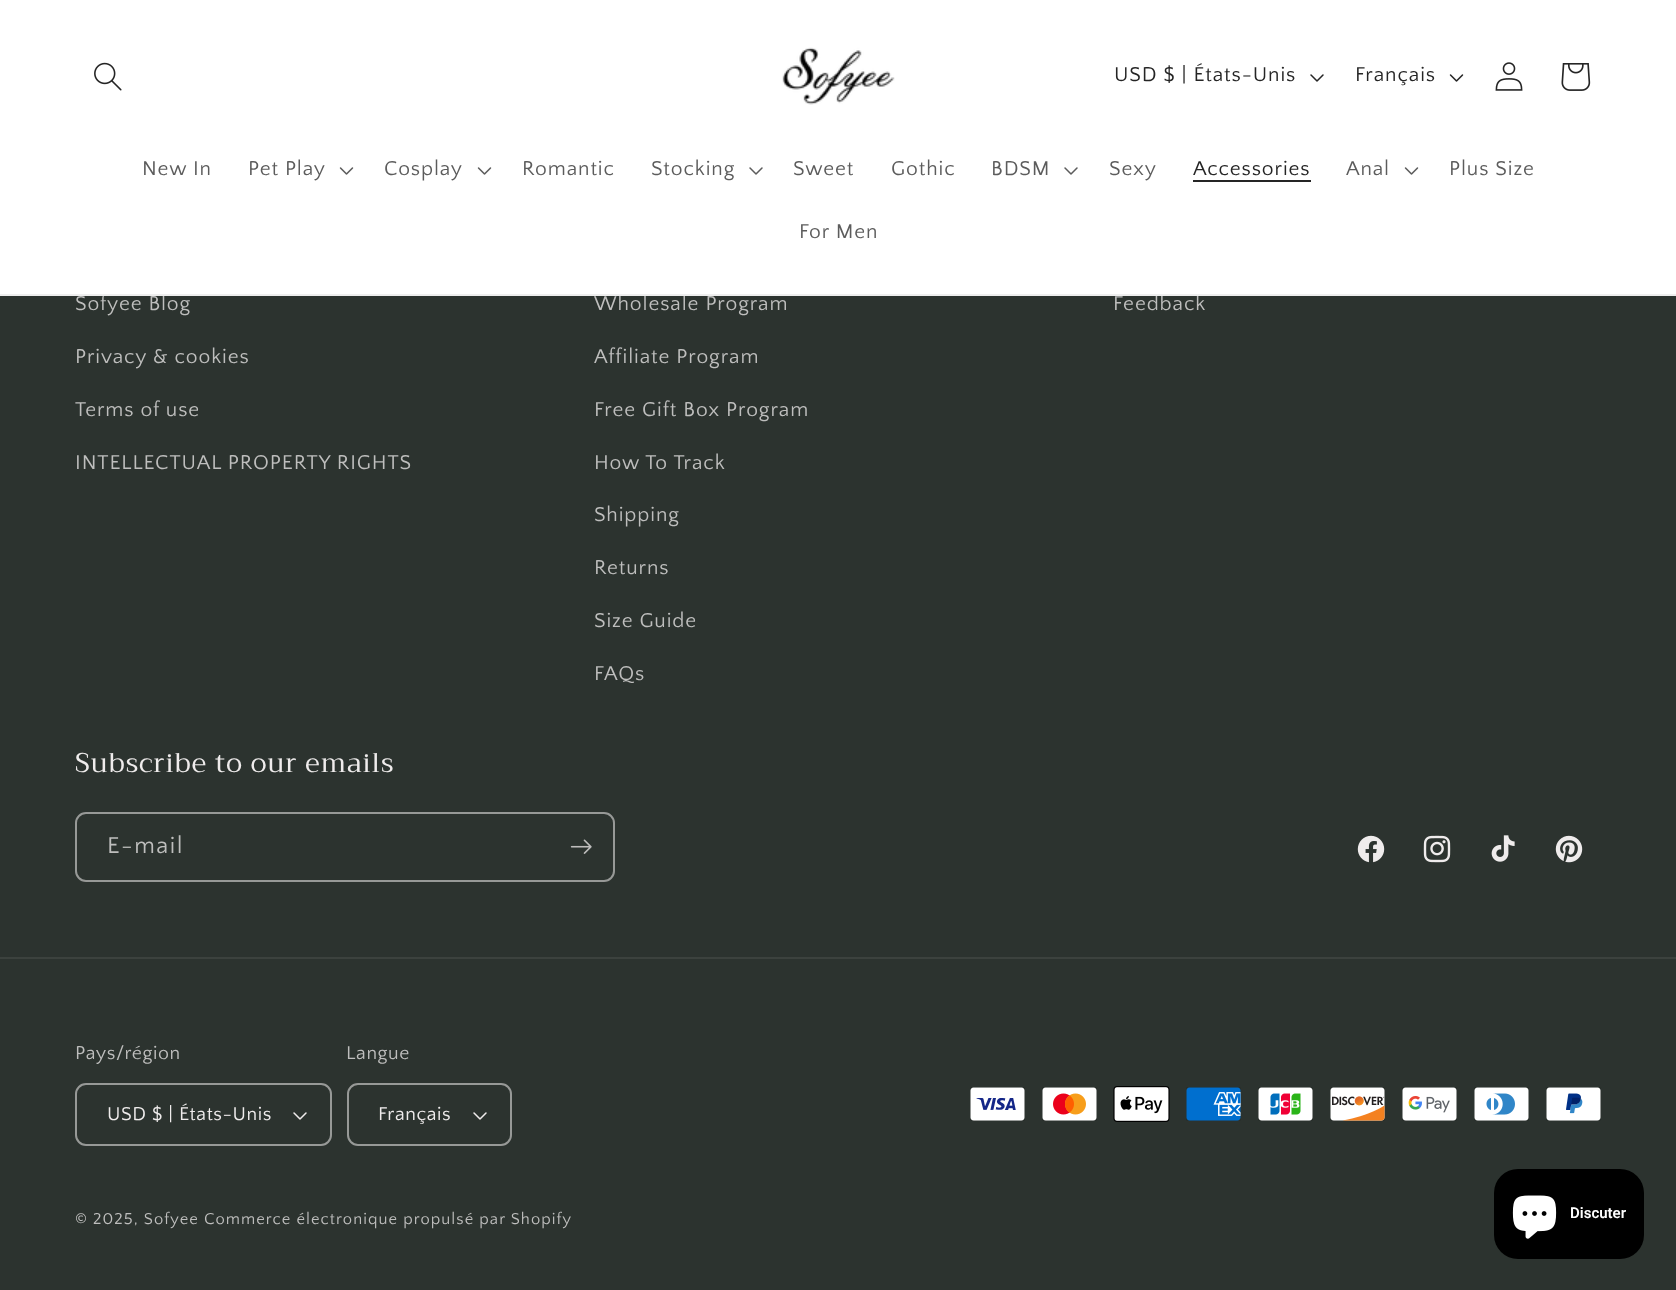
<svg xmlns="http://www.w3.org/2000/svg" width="1676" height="1290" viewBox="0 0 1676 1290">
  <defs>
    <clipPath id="clip1"><rect x="1571" y="1191" width="55" height="45"/></clipPath>
  </defs>
  <rect width="100%" height="100%" fill="#2c332f"/>
  <rect x="0" y="0" width="1676" height="294" fill="#ffffff"/>
  <text x="75" y="310" font-family="Quattrocento Sans" font-size="21" letter-spacing="0.9" fill="#bebebd">Sofyee Blog</text>
  <text x="594" y="310" font-family="Quattrocento Sans" font-size="21" letter-spacing="0.9" fill="#bebebd">Wholesale Program</text>
  <text x="1113" y="310" font-family="Quattrocento Sans" font-size="21" letter-spacing="0.9" fill="#bebebd">Feedback</text>
  <rect x="0" y="294" width="1676" height="2" fill="#eeeeee"/>
  <image x="94" y="62" width="28" height="29" href="img1.png"/>
  <image x="782" y="47" width="113" height="58" href="img2.png"/>
  <text x="1114" y="81" font-family="Quattrocento Sans" font-size="21" letter-spacing="0.9" fill="#252525">USD $ | États-Unis</text>
  <image x="1310" y="74" width="14" height="8" href="img3.png"/>
  <text x="1355" y="81" font-family="Quattrocento Sans" font-size="21" letter-spacing="0.9" fill="#252525">Français</text>
  <image x="1449" y="74" width="15" height="8" href="img4.png"/>
  <image x="1495" y="62" width="28" height="29" href="img5.png"/>
  <image x="1561" y="63" width="30" height="28" href="img6.png"/>
  <text x="142" y="175" font-family="Quattrocento Sans" font-size="21" letter-spacing="0.9" fill="#5c5c5c">New In</text>
  <text x="248" y="175" font-family="Quattrocento Sans" font-size="21" letter-spacing="0.9" fill="#5c5c5c">Pet Play</text>
  <image x="339" y="167" width="15" height="8" href="img7.png"/>
  <text x="384" y="175" font-family="Quattrocento Sans" font-size="21" letter-spacing="0.9" fill="#5c5c5c">Cosplay</text>
  <image x="477" y="167" width="15" height="8" href="img7.png"/>
  <text x="522" y="175" font-family="Quattrocento Sans" font-size="21" letter-spacing="0.9" fill="#5c5c5c">Romantic</text>
  <text x="651" y="175" font-family="Quattrocento Sans" font-size="21" letter-spacing="0.9" fill="#5c5c5c">Stocking</text>
  <image x="749" y="167" width="14" height="8" href="img8.png"/>
  <text x="793" y="175" font-family="Quattrocento Sans" font-size="21" letter-spacing="0.9" fill="#5c5c5c">Sweet</text>
  <text x="891" y="175" font-family="Quattrocento Sans" font-size="21" letter-spacing="0.9" fill="#5c5c5c">Gothic</text>
  <text x="991" y="175" font-family="Quattrocento Sans" font-size="21" letter-spacing="0.9" fill="#5c5c5c">BDSM</text>
  <image x="1064" y="167" width="14" height="8" href="img8.png"/>
  <text x="1109" y="175" font-family="Quattrocento Sans" font-size="21" letter-spacing="0.9" fill="#5c5c5c">Sexy</text>
  <text x="1193" y="175" font-family="Quattrocento Sans" font-size="21" letter-spacing="0.9" fill="#252525">Accessories</text>
  <rect x="1193" y="180" width="118" height="2" fill="#252525"/>
  <text x="1346" y="175" font-family="Quattrocento Sans" font-size="21" letter-spacing="0.9" fill="#5c5c5c">Anal</text>
  <image x="1404" y="167" width="15" height="8" href="img7.png"/>
  <text x="1449" y="175" font-family="Quattrocento Sans" font-size="21" letter-spacing="0.9" fill="#5c5c5c">Plus Size</text>
  <text x="799" y="238" font-family="Quattrocento Sans" font-size="21" letter-spacing="0.9" fill="#5c5c5c">For Men</text>
  <text x="75" y="363" font-family="Quattrocento Sans" font-size="21" letter-spacing="0.9" fill="#bebebd">Privacy &amp; cookies</text>
  <text x="75" y="416" font-family="Quattrocento Sans" font-size="21" letter-spacing="0.9" fill="#bebebd">Terms of use</text>
  <text x="75" y="469" font-family="Quattrocento Sans" font-size="21" letter-spacing="0.9" fill="#bebebd">INTELLECTUAL PROPERTY RIGHTS</text>
  <text x="594" y="363" font-family="Quattrocento Sans" font-size="21" letter-spacing="0.9" fill="#bebebd">Affiliate Program</text>
  <text x="594" y="416" font-family="Quattrocento Sans" font-size="21" letter-spacing="0.9" fill="#bebebd">Free Gift Box Program</text>
  <text x="594" y="469" font-family="Quattrocento Sans" font-size="21" letter-spacing="0.9" fill="#bebebd">How To Track</text>
  <text x="594" y="521" font-family="Quattrocento Sans" font-size="21" letter-spacing="0.9" fill="#bebebd">Shipping</text>
  <text x="594" y="574" font-family="Quattrocento Sans" font-size="21" letter-spacing="0.9" fill="#bebebd">Returns</text>
  <text x="594" y="627" font-family="Quattrocento Sans" font-size="21" letter-spacing="0.9" fill="#bebebd">Size Guide</text>
  <text x="594" y="680" font-family="Quattrocento Sans" font-size="21" letter-spacing="0.9" fill="#bebebd">FAQs</text>
  <text x="75" y="772" font-family="Trirong" font-size="27" letter-spacing="0.9" fill="#efecec">Subscribe to our emails</text>
  <rect x="76" y="813" width="538" height="68" rx="10" fill="none" stroke="#979997" stroke-width="2"/>
  <text x="107" y="853" font-family="Quattrocento Sans" font-size="24" letter-spacing="1.5" fill="#bebebd">E-mail</text>
  <image x="570" y="839" width="22" height="15" href="img9.png"/>
  <image x="1357" y="835" width="28" height="28" href="img10.png"/>
  <image x="1423" y="835" width="28" height="28" href="img11.png"/>
  <image x="1491" y="835" width="24" height="27" href="img12.png"/>
  <image x="1555" y="835" width="28" height="28" href="img13.png"/>
  <rect x="0" y="957" width="1676" height="2" fill="#3c423e"/>
  <text x="75" y="1059" font-family="Quattrocento Sans" font-size="19.5" letter-spacing="0.6" fill="#bebebd">Pays/région</text>
  <image x="293" y="1112" width="14" height="8" href="img14.png"/>
  <rect x="76" y="1084" width="255" height="61" rx="10" fill="none" stroke="#979997" stroke-width="2"/>
  <text x="107" y="1120" font-family="Quattrocento Sans" font-size="19.5" letter-spacing="0.6" fill="#efecec">USD $ | États-Unis</text>
  <text x="346" y="1059" font-family="Quattrocento Sans" font-size="19.5" letter-spacing="0.6" fill="#bebebd">Langue</text>
  <image x="473" y="1112" width="14" height="8" href="img14.png"/>
  <rect x="348" y="1084" width="163" height="61" rx="10" fill="none" stroke="#979997" stroke-width="2"/>
  <text x="378" y="1120" font-family="Quattrocento Sans" font-size="19.5" letter-spacing="0.6" fill="#efecec">Français</text>
  <image x="970" y="1087" width="55" height="34" href="img15.png"/>
  <image x="1042" y="1087" width="55" height="34" href="img16.png"/>
  <image x="1113" y="1086" width="57" height="36" href="img17.png"/>
  <image x="1186" y="1087" width="55" height="34" href="img18.png"/>
  <image x="1258" y="1087" width="55" height="34" href="img19.png"/>
  <image x="1330" y="1087" width="55" height="34" href="img20.png"/>
  <image x="1402" y="1087" width="55" height="34" href="img21.png"/>
  <image x="1474" y="1087" width="55" height="34" href="img22.png"/>
  <image x="1546" y="1087" width="55" height="34" href="img23.png"/>
  <text x="75" y="1224" font-family="Quattrocento Sans" font-size="16.5" letter-spacing="1.05" fill="#bebebd">© 2025, Sofyee</text>
  <text x="204" y="1224" font-family="Quattrocento Sans" font-size="16.5" letter-spacing="1.05" fill="#bebebd">Commerce électronique propulsé par Shopify</text>
  <rect x="1494" y="1169" width="150" height="90" rx="24" fill="#000000"/>
  <image x="1512" y="1195" width="45" height="44" href="img24.png"/>
  <g clip-path="url(#clip1)">
    <text x="1570" y="1218" font-family="Roboto" font-size="15" font-weight="600" fill="#ffffff">Discuter</text>
  </g>
</svg>
